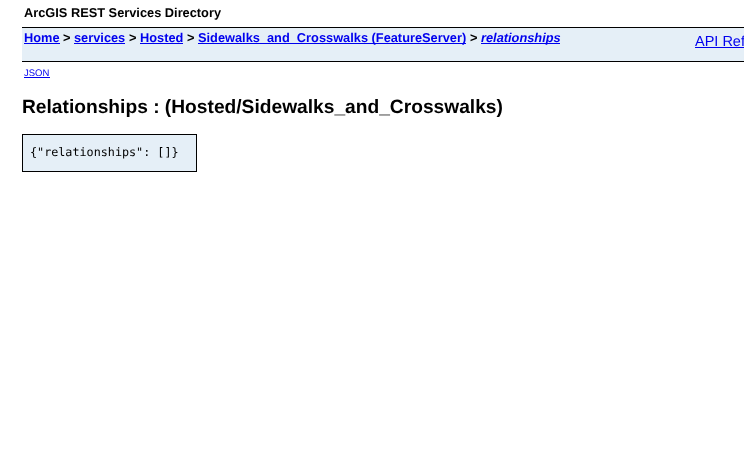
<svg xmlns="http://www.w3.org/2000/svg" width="744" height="462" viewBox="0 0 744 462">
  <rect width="100%" height="100%" fill="#ffffff"/>
  <text x="24" y="17" font-family="Liberation Sans" font-size="12.8" font-weight="bold" fill="#000000">ArcGIS REST Services Directory</text>
  <rect x="22" y="28" width="722" height="33" fill="#e5eff7"/>
  <rect x="22" y="27" width="722" height="1" fill="#000000"/>
  <rect x="22" y="61" width="722" height="1" fill="#000000"/>
  <text x="24" y="42" font-family="Liberation Sans" font-size="12.8" font-weight="bold" fill="#0000ee">Home</text>
  <rect x="24" y="43" width="36" height="1" fill="#0000ee"/>
  <text x="63" y="42" font-family="Liberation Sans" font-size="12.8" font-weight="bold" fill="#000000">&gt;</text>
  <text x="74" y="42" font-family="Liberation Sans" font-size="12.8" font-weight="bold" fill="#0000ee">services</text>
  <rect x="74" y="43" width="51" height="1" fill="#0000ee"/>
  <text x="129" y="42" font-family="Liberation Sans" font-size="12.8" font-weight="bold" fill="#000000">&gt;</text>
  <text x="140" y="42" font-family="Liberation Sans" font-size="12.8" font-weight="bold" fill="#0000ee">Hosted</text>
  <rect x="140" y="43" width="43" height="1" fill="#0000ee"/>
  <text x="187" y="42" font-family="Liberation Sans" font-size="12.8" font-weight="bold" fill="#000000">&gt;</text>
  <rect x="198" y="43" width="268" height="1" fill="#0000ee"/>
  <text x="198" y="42" font-family="Liberation Sans" font-size="12.8" font-weight="bold" fill="#0000ee">Sidewalks_and_Crosswalks (FeatureServer)</text>
  <text x="470" y="42" font-family="Liberation Sans" font-size="12.8" font-weight="bold" fill="#000000">&gt;</text>
  <rect x="481" y="43" width="79" height="1" fill="#0000ee"/>
  <text x="481" y="42" font-family="Liberation Sans" font-size="12.8" font-weight="bold" font-style="italic" fill="#0000ee">relationships</text>
  <text x="695" y="46" font-family="Liberation Sans" font-size="14.5" fill="#0000ee">API Ref</text>
  <rect x="695" y="47" width="49" height="1" fill="#0000ee"/>
  <text x="24" y="76" font-family="Liberation Sans" font-size="9.5" fill="#0000ee">JSON</text>
  <rect x="24" y="77" width="26" height="1" fill="#0000ee"/>
  <text x="22" y="113" font-family="Liberation Sans" font-size="19.2" font-weight="bold" fill="#000000">Relationships : (Hosted/Sidewalks_and_Crosswalks)</text>
  <rect x="22.5" y="134.5" width="174" height="37" fill="#e5eff7" stroke="#000000"/>
  <text x="30" y="156" font-family="DejaVu Sans Mono" font-size="11.75" fill="#000000">{"relationships": []}</text>
</svg>
